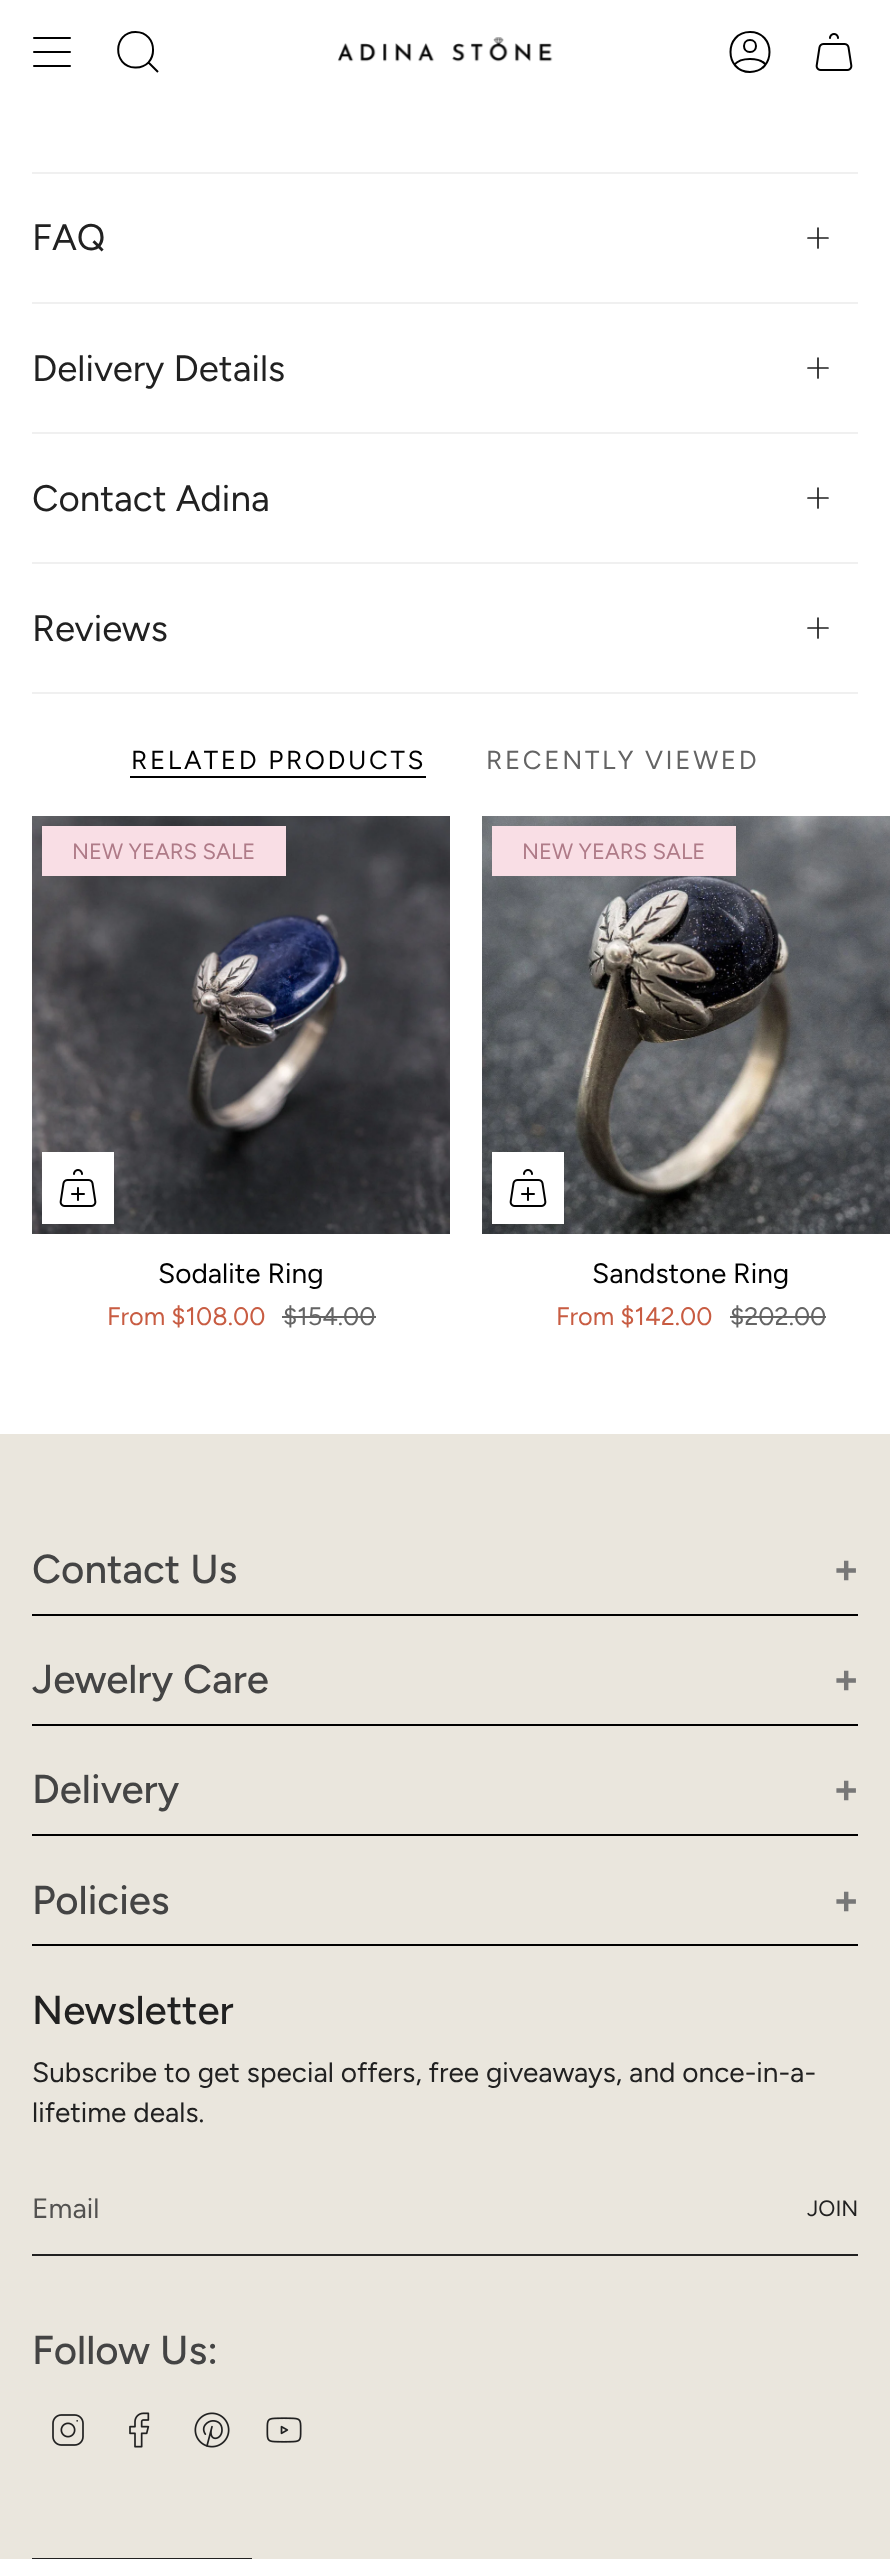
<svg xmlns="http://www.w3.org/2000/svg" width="890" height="2559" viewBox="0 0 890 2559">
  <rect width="100%" height="100%" fill="#ffffff"/>
  <path d="M34 38H70M34 52H70M34 66H70" fill="none" stroke="#000000" stroke-width="2" stroke-linecap="round" stroke-linejoin="round"/>
  <path d="M135.5 32C159 32 159 68.5 135 67.5C112 66.5 113 32 135.5 32ZM148 62L158 72" fill="none" stroke="#000000" stroke-width="2"/>
  <image x="337" y="37" width="216" height="25" href="img1.png"/>
  <path d="M750 32C724 32 724 72 750 72C776 72 776 32 750 32ZM734.5 64.5C740.5 57 759.5 57 765.5 64.5M750 52C758 52 758 40 750 40C742 40 742 52 750 52Z" fill="none" stroke="#000000" stroke-width="2" stroke-linecap="round" stroke-linejoin="round"/>
  <image x="815" y="33" width="38" height="38" href="img2.png"/>
  <rect x="32" y="172" width="826" height="2" fill="#f0f0f0"/>
  <text x="32" y="250" font-family="Figtree" font-size="36.75" fill="#212121">FAQ</text>
  <path d="M808 238H818M828 238H818M818 238V228M818 238V248" fill="none" stroke="#212121" stroke-width="1.7" stroke-linecap="round" stroke-linejoin="round"/>
  <rect x="32" y="302" width="826" height="2" fill="#f0f0f0"/>
  <text x="32" y="381" font-family="Figtree" font-size="36.75" fill="#212121">Delivery Details</text>
  <path d="M808 368H818M828 368H818M818 368V358M818 368V378" fill="none" stroke="#212121" stroke-width="1.7" stroke-linecap="round" stroke-linejoin="round"/>
  <rect x="32" y="432" width="826" height="2" fill="#f0f0f0"/>
  <text x="32" y="511" font-family="Figtree" font-size="36.75" fill="#212121">Contact Adina</text>
  <path d="M808 498H818M828 498H818M818 498V488M818 498V508" fill="none" stroke="#212121" stroke-width="1.7" stroke-linecap="round" stroke-linejoin="round"/>
  <rect x="32" y="562" width="826" height="2" fill="#f0f0f0"/>
  <rect x="32" y="692" width="826" height="2" fill="#f0f0f0"/>
  <text x="32" y="641" font-family="Figtree" font-size="36.75" fill="#212121">Reviews</text>
  <path d="M808 628H818M828 628H818M818 628V618M818 628V638" fill="none" stroke="#212121" stroke-width="1.7" stroke-linecap="round" stroke-linejoin="round"/>
  <text x="131" y="769" font-family="Figtree" font-size="26" letter-spacing="2.6" fill="#000000">RELATED PRODUCTS</text>
  <rect x="130" y="776" width="296" height="2" fill="#000000"/>
  <text x="486" y="769" font-family="Figtree" font-size="26" letter-spacing="2.6" fill="#646464">RECENTLY VIEWED</text>
  <image x="32" y="816" width="418" height="418" href="img3.png"/>
  <rect x="42" y="826" width="244" height="50" fill="#f9dee5"/>
  <text x="72" y="859" font-family="Figtree" font-size="22" fill="#af7b88">NEW YEARS SALE</text>
  <rect x="42" y="1152" width="72" height="72" fill="#ffffff"/>
  <image x="59" y="1169" width="38" height="38" href="img4.png"/>
  <text x="158" y="1283" font-family="Figtree" font-size="28" fill="#000000">Sodalite Ring</text>
  <text x="107" y="1325" font-family="Figtree" font-size="25.25" fill="#c85c42">From $108.00</text>
  <text x="283" y="1325" font-family="Figtree" font-size="25.25" fill="#646464">$154.00</text>
  <rect x="282" y="1316" width="94" height="2" fill="#646464"/>
  <image x="482" y="816" width="408" height="418" href="img5.png"/>
  <rect x="492" y="826" width="244" height="50" fill="#f9dee5"/>
  <text x="522" y="859" font-family="Figtree" font-size="22" fill="#af7b88">NEW YEARS SALE</text>
  <rect x="492" y="1152" width="72" height="72" fill="#ffffff"/>
  <image x="509" y="1169" width="38" height="38" href="img4.png"/>
  <text x="592" y="1283" font-family="Figtree" font-size="28" fill="#000000">Sandstone Ring</text>
  <text x="556" y="1325" font-family="Figtree" font-size="25.25" fill="#c85c42">From $142.00</text>
  <text x="730" y="1325" font-family="Figtree" font-size="25.25" fill="#646464">$202.00</text>
  <rect x="730" y="1316" width="96" height="2" fill="#646464"/>
  <rect x="0" y="1434" width="890" height="1125" fill="#eae6dd"/>
  <rect x="32" y="1614" width="826" height="2" fill="#000000"/>
  <text x="32" y="1583" font-family="Figtree" font-size="40.25" font-weight="500" fill="#444444">Contact Us</text>
  <text x="833" y="1583" font-family="Figtree" font-size="40.25" font-weight="bold" fill="#777777">+</text>
  <rect x="32" y="1724" width="826" height="2" fill="#000000"/>
  <text x="32" y="1693" font-family="Figtree" font-size="40.25" font-weight="500" fill="#444444">Jewelry Care</text>
  <text x="833" y="1693" font-family="Figtree" font-size="40.25" font-weight="bold" fill="#777777">+</text>
  <rect x="32" y="1834" width="826" height="2" fill="#000000"/>
  <text x="32" y="1803" font-family="Figtree" font-size="40.25" font-weight="500" fill="#444444">Delivery</text>
  <text x="833" y="1803" font-family="Figtree" font-size="40.25" font-weight="bold" fill="#777777">+</text>
  <rect x="32" y="1944" width="826" height="2" fill="#000000"/>
  <text x="32" y="1914" font-family="Figtree" font-size="40.25" font-weight="500" fill="#444444">Policies</text>
  <text x="833" y="1914" font-family="Figtree" font-size="40.25" font-weight="bold" fill="#777777">+</text>
  <text x="32" y="2024" font-family="Figtree" font-size="40.25" font-weight="500" fill="#212121">Newsletter</text>
  <text x="32" y="2082" font-family="Figtree" font-size="28" fill="#212121">Subscribe to get special offers, free giveaways, and once-in-a-</text>
  <text x="32" y="2122" font-family="Figtree" font-size="28" fill="#212121">lifetime deals.</text>
  <rect x="32" y="2254" width="826" height="2" fill="#212121"/>
  <text x="32" y="2218" font-family="Figtree" font-size="28" fill="#535250">Email</text>
  <text x="807" y="2216" font-family="Figtree" font-size="22" fill="#212121">JOIN</text>
  <text x="32" y="2364" font-family="Figtree" font-size="40.25" font-weight="500" fill="#444444">Follow Us:</text>
  <image x="52" y="2414" width="32" height="32" href="img6.png"/>
  <image x="129" y="2412" width="21" height="36" href="img7.png"/>
  <image x="194" y="2412" width="36" height="36" href="img8.png"/>
  <image x="266" y="2417" width="36" height="26" href="img9.png"/>
  <rect x="33" y="2559" width="218" height="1" fill="none" stroke="#212121" stroke-width="2"/>
</svg>
